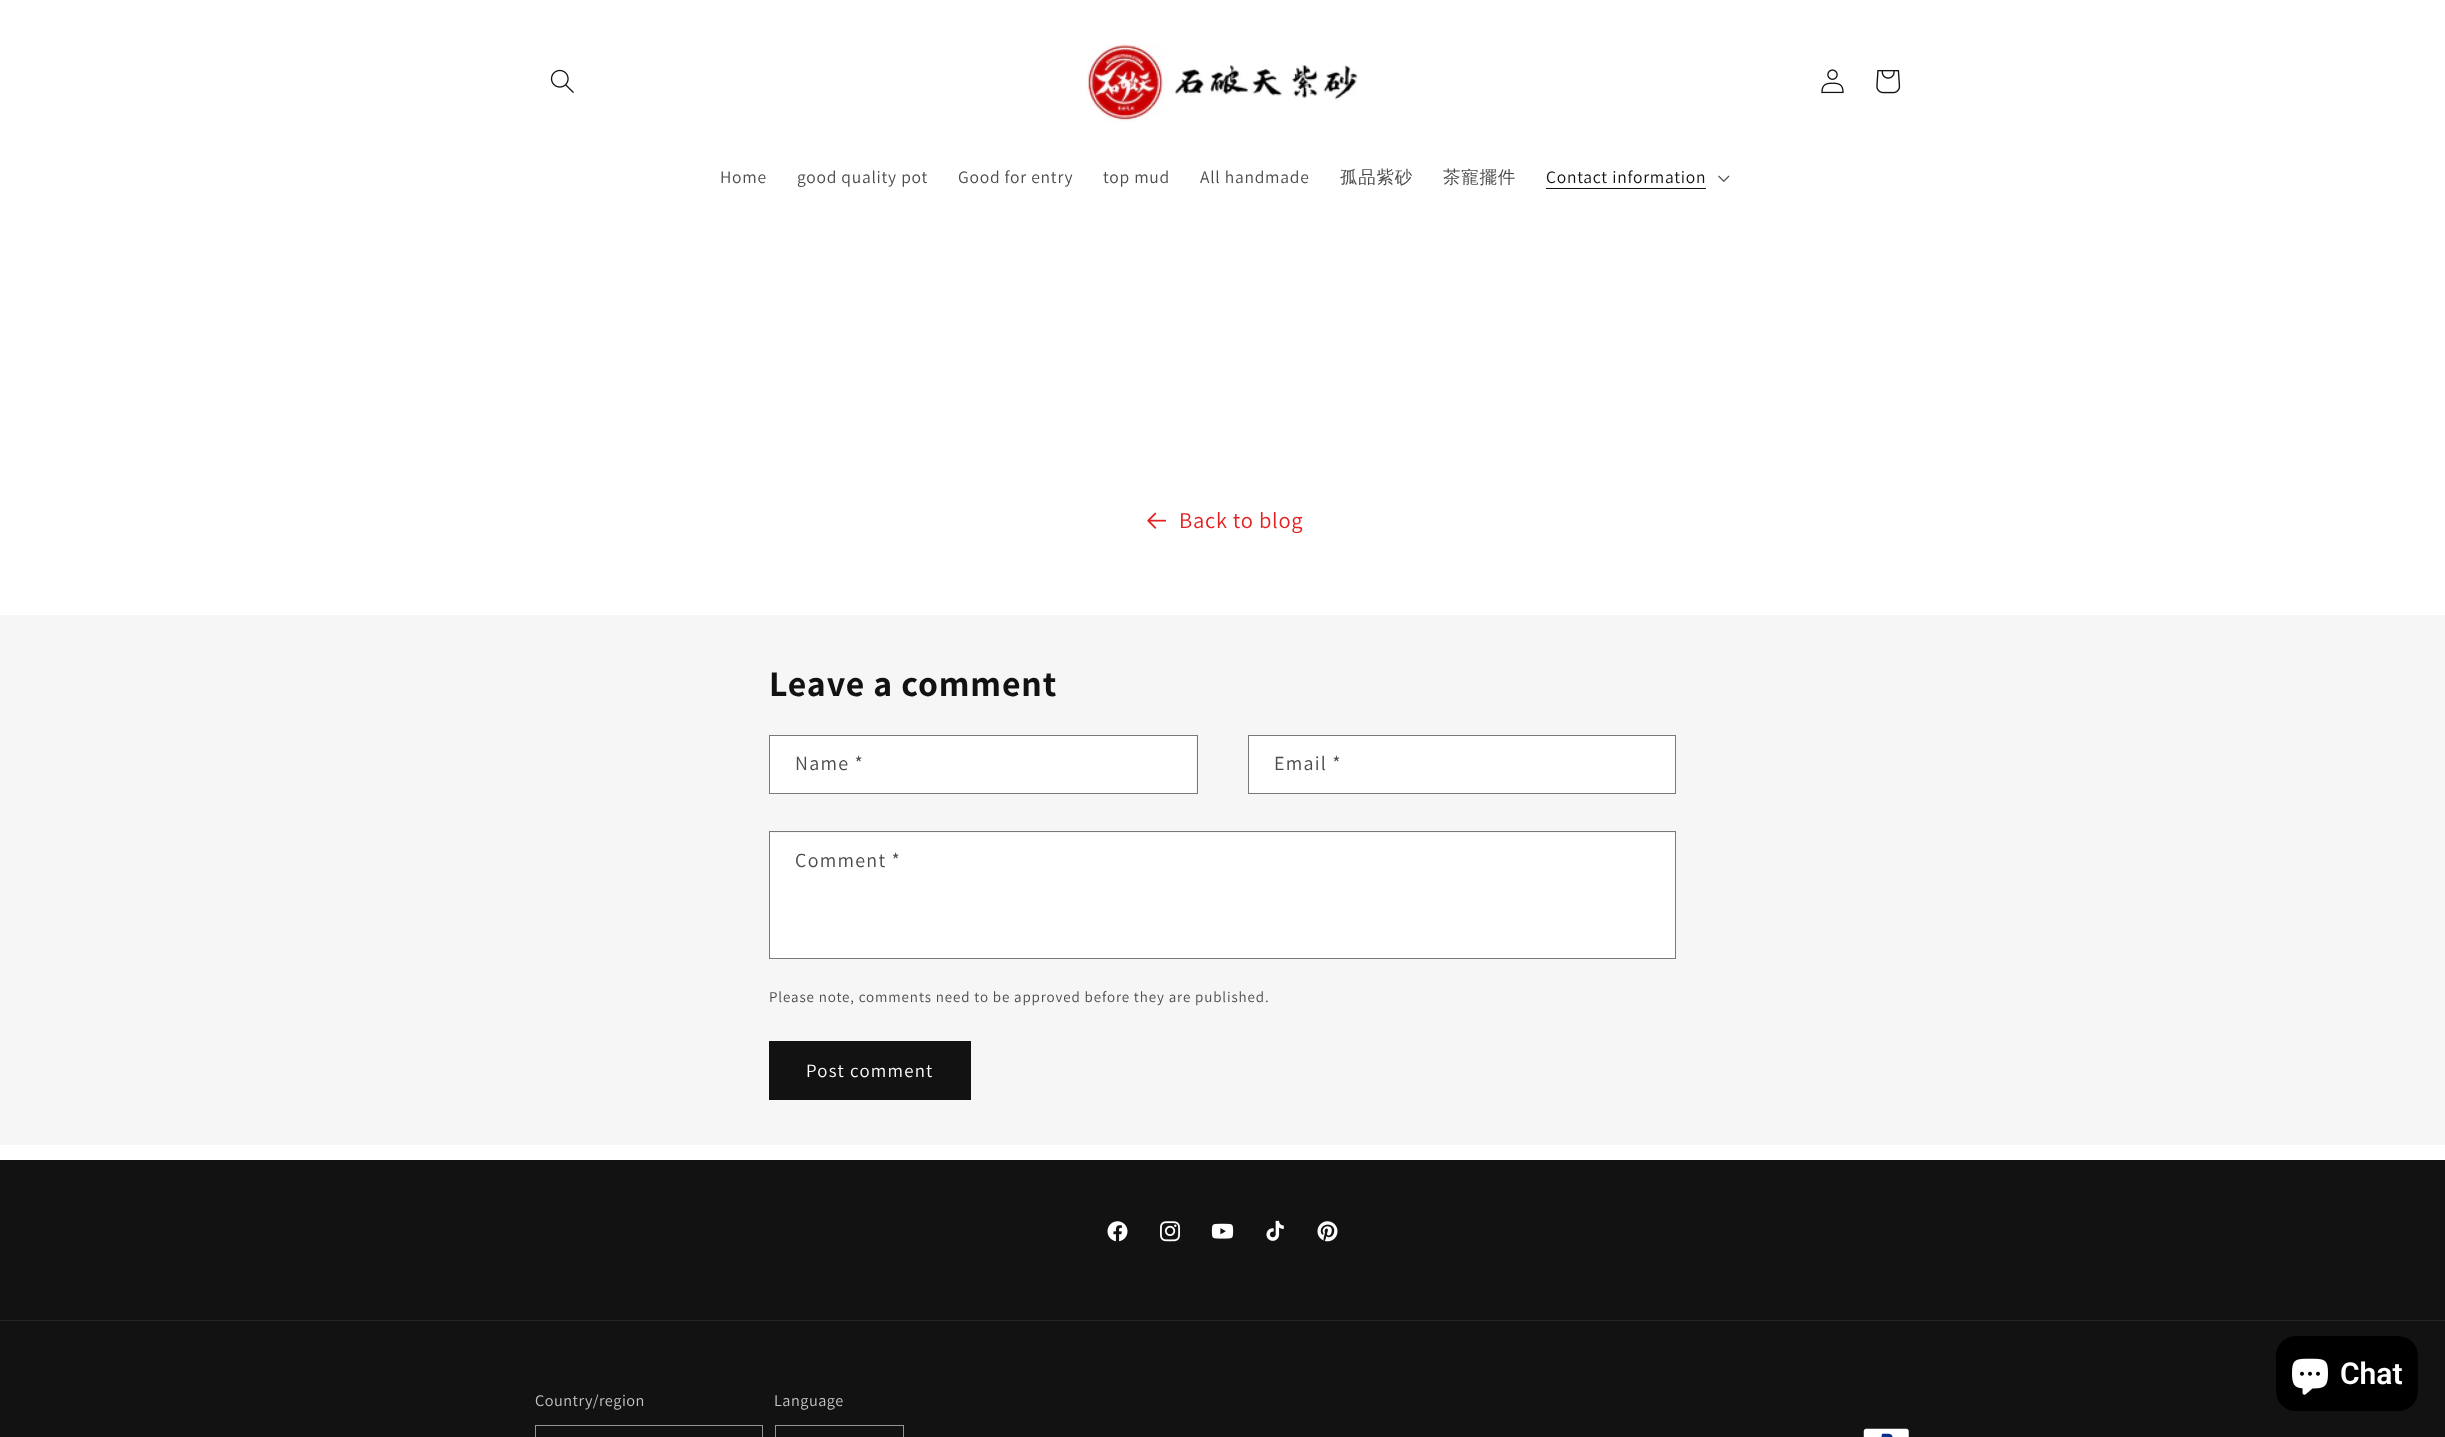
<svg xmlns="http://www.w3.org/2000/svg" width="2445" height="1437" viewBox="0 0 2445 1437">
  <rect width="100%" height="100%" fill="#ffffff"/>
  <image x="550" y="69" width="24" height="24" href="img1.png"/>
  <image x="1086" y="44" width="272" height="79" href="img2.png"/>
  <image x="1821" y="69" width="23" height="25" href="img3.png"/>
  <image x="1876" y="70" width="25" height="24" href="img4.png"/>
  <text x="720" y="183" font-family="Assistant" font-size="17.5" letter-spacing="0.75" fill="#4b4b4b">Home</text>
  <text x="797" y="183" font-family="Assistant" font-size="17.5" letter-spacing="0.75" fill="#4b4b4b">good quality pot</text>
  <text x="958" y="183" font-family="Assistant" font-size="17.5" letter-spacing="0.75" fill="#4b4b4b">Good for entry</text>
  <text x="1103" y="183" font-family="Assistant" font-size="17.5" letter-spacing="0.75" fill="#4b4b4b">top mud</text>
  <text x="1200" y="183" font-family="Assistant" font-size="17.5" letter-spacing="0.75" fill="#4b4b4b">All handmade</text>
  <text x="1340" y="183" font-family="WenQuanYi Zen Hei" font-size="17.5" font-weight="500" letter-spacing="0.75" fill="#4b4b4b">孤品紫砂</text>
  <text x="1443" y="183" font-family="WenQuanYi Zen Hei" font-size="17.5" font-weight="500" letter-spacing="0.75" fill="#4b4b4b">茶寵擺件</text>
  <text x="1546" y="183" font-family="Assistant" font-size="17.5" letter-spacing="0.75" fill="#121212">Contact information</text>
  <rect x="1546" y="188" width="160" height="1" fill="#121212"/>
  <image x="1718" y="175" width="12" height="7" href="img5.png"/>
  <image x="1147" y="512" width="19" height="17" href="img6.png"/>
  <text x="1179" y="528" font-family="Assistant" font-size="22.5" letter-spacing="0.75" fill="#e22120">Back to blog</text>
  <rect x="0" y="615" width="2445" height="530" fill="#f6f6f6"/>
  <text x="769" y="696" font-family="Assistant" font-size="36" font-weight="bold" letter-spacing="0.9" fill="#121212">Leave a comment</text>
  <rect x="770" y="736" width="426" height="57" fill="#ffffff"/>
  <rect x="769.5" y="735.5" width="428" height="58" fill="none" stroke="#797979"/>
  <text x="795" y="770" font-family="Assistant" font-size="20" letter-spacing="1.25" fill="#4b4b4b">Name *</text>
  <rect x="1249" y="736" width="426" height="57" fill="#ffffff"/>
  <rect x="1248.5" y="735.5" width="427" height="58" fill="none" stroke="#797979"/>
  <text x="1274" y="770" font-family="Assistant" font-size="20" letter-spacing="1.25" fill="#4b4b4b">Email *</text>
  <rect x="770" y="833" width="905" height="125" fill="#ffffff"/>
  <rect x="769.5" y="831.5" width="906" height="127" fill="none" stroke="#797979"/>
  <text x="795" y="867" font-family="Assistant" font-size="20" letter-spacing="1.25" fill="#4b4b4b">Comment *</text>
  <text x="769" y="1002" font-family="Assistant" font-size="15" letter-spacing="0.88" fill="#4b4b4b">Please note, comments need to be approved before they are published.</text>
  <rect x="769" y="1041" width="202" height="59" fill="#121212"/>
  <text x="806" y="1077" font-family="Assistant" font-size="18.75" letter-spacing="1.25" fill="#ffffff">Post comment</text>
  <rect x="0" y="1160" width="2445" height="277" fill="#121212"/>
  <rect x="2276" y="1336" width="142" height="75" rx="20" fill="#000000"/>
  <image x="2292" y="1358" width="36" height="37" href="img7.png"/>
  <text x="2340" y="1384" font-family="Roboto" font-size="30" font-weight="600" fill="#ffffff">Chat</text>
  <image x="1107" y="1221" width="21" height="21" href="img8.png"/>
  <image x="1160" y="1221" width="20" height="21" href="img9.png"/>
  <image x="1211" y="1223" width="23" height="16" href="img10.png"/>
  <image x="1266" y="1220" width="18" height="21" href="img11.png"/>
  <image x="1317" y="1221" width="21" height="21" href="img12.png"/>
  <rect x="0" y="1320" width="2445" height="1" fill="#252525"/>
  <text x="535" y="1406" font-family="Assistant" font-size="16.25" letter-spacing="0.5" fill="#c4c4c4">Country/region</text>
  <rect x="535.5" y="1425.5" width="227" height="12" fill="none" stroke="#949494"/>
  <text x="774" y="1406" font-family="Assistant" font-size="16.25" letter-spacing="0.5" fill="#c4c4c4">Language</text>
  <rect x="775.5" y="1425.5" width="128" height="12" fill="none" stroke="#949494"/>
  <image x="1863" y="1428" width="46" height="9" href="img13.png"/>
</svg>
